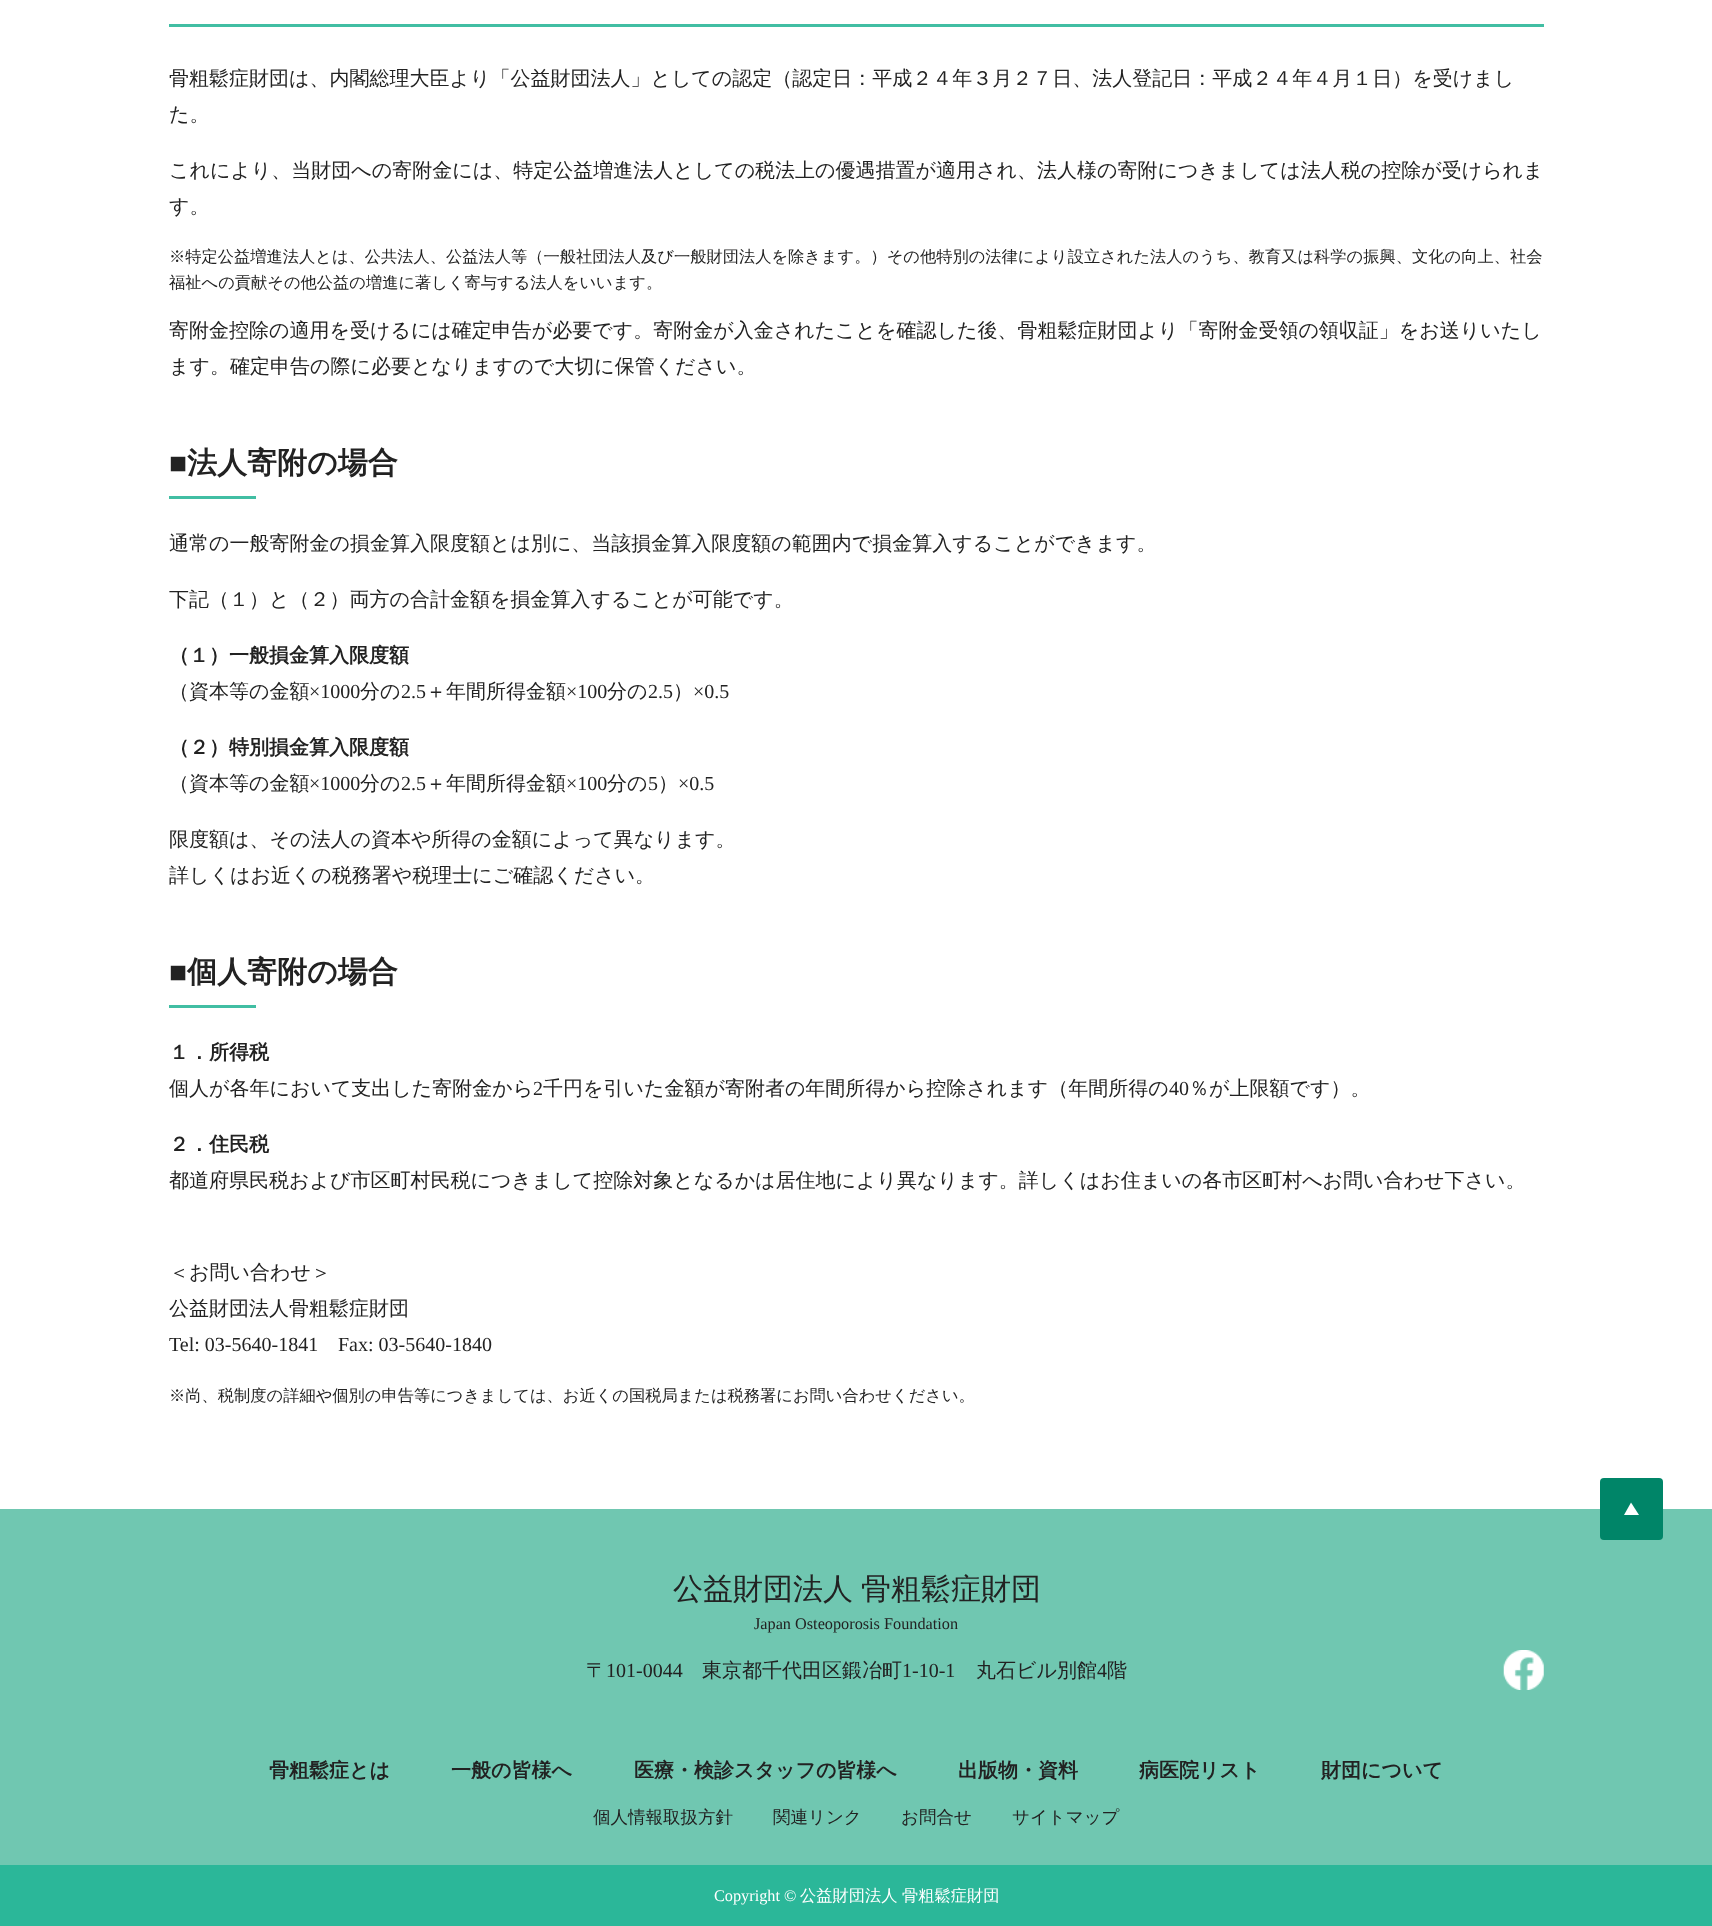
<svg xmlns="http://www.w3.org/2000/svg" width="1712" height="1926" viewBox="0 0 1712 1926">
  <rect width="100%" height="100%" fill="#ffffff"/>
  <rect x="169" y="24" width="1375" height="3" fill="#41bea3"/>
  <text x="169" y="85" font-family="WenQuanYi Zen Hei" font-size="20" font-weight="500" fill="#222222">骨粗鬆症財団は、内閣総理大臣より「公益財団法人」としての認定（認定日：平成２４年３月２７日、法人登記日：平成２４年４月１日）を受けまし</text>
  <text x="169" y="121" font-family="WenQuanYi Zen Hei" font-size="20" font-weight="500" fill="#222222">た。</text>
  <text x="169" y="177" font-family="WenQuanYi Zen Hei" font-size="20" font-weight="500" fill="#222222">これにより、当財団への寄附金には、特定公益増進法人としての税法上の優遇措置が適用され、法人様の寄附につきましては法人税の控除が受けられま</text>
  <text x="169" y="213" font-family="WenQuanYi Zen Hei" font-size="20" font-weight="500" fill="#222222">す。</text>
  <text x="169" y="262" font-family="WenQuanYi Zen Hei" font-size="16.25" font-weight="500" fill="#222222">※特定公益増進法人とは、公共法人、公益法人等（一般社団法人及び一般財団法人を除きます。）その他特別の法律により設立された法人のうち、教育又は科学の振興、文化の向上、社会</text>
  <text x="169" y="288" font-family="WenQuanYi Zen Hei" font-size="16.25" font-weight="500" fill="#222222">福祉への貢献その他公益の増進に著しく寄与する法人をいいます。</text>
  <text x="169" y="337" font-family="WenQuanYi Zen Hei" font-size="20" font-weight="500" fill="#222222">寄附金控除の適用を受けるには確定申告が必要です。寄附金が入金されたことを確認した後、骨粗鬆症財団より「寄附金受領の領収証」をお送りいたし</text>
  <text x="169" y="373" font-family="WenQuanYi Zen Hei" font-size="20" font-weight="500" fill="#222222">ます。確定申告の際に必要となりますので大切に保管ください。</text>
  <text x="169" y="473" font-family="Liberation Serif" font-size="30" font-weight="bold" fill="#222222">■</text>
  <text x="187" y="473" font-family="WenQuanYi Zen Hei" font-size="30" font-weight="bold" fill="#222222">法人寄附の場合</text>
  <rect x="169" y="496" width="87" height="3" fill="#41bea3"/>
  <text x="169" y="550" font-family="WenQuanYi Zen Hei" font-size="20" font-weight="500" fill="#222222">通常の一般寄附金の損金算入限度額とは別に、当該損金算入限度額の範囲内で損金算入することができます。</text>
  <text x="169" y="606" font-family="WenQuanYi Zen Hei" font-size="20" font-weight="500" fill="#222222">下記（１）と（２）両方の合計金額を損金算入することが可能です。</text>
  <text x="169" y="662" font-family="WenQuanYi Zen Hei" font-size="20" font-weight="bold" fill="#222222">（１）一般損金算入限度額</text>
  <text x="169" y="698" font-family="WenQuanYi Zen Hei" font-size="20" font-weight="500" fill="#222222">（資本等の金額</text>
  <text x="309" y="698" font-family="Liberation Serif" font-size="20" fill="#222222">×1000</text>
  <text x="360" y="698" font-family="WenQuanYi Zen Hei" font-size="20" font-weight="500" fill="#222222">分の</text>
  <text x="401" y="698" font-family="Liberation Serif" font-size="20" fill="#222222">2.5</text>
  <text x="426" y="698" font-family="WenQuanYi Zen Hei" font-size="20" font-weight="500" fill="#222222">＋年間所得金額</text>
  <text x="566" y="698" font-family="Liberation Serif" font-size="20" fill="#222222">×100</text>
  <text x="607" y="698" font-family="WenQuanYi Zen Hei" font-size="20" font-weight="500" fill="#222222">分の</text>
  <text x="648" y="698" font-family="Liberation Serif" font-size="20" fill="#222222">2.5</text>
  <text x="673" y="698" font-family="WenQuanYi Zen Hei" font-size="20" font-weight="500" fill="#222222">）</text>
  <text x="693" y="698" font-family="Liberation Serif" font-size="20" fill="#222222">×0.5</text>
  <text x="169" y="754" font-family="WenQuanYi Zen Hei" font-size="20" font-weight="bold" fill="#222222">（２）特別損金算入限度額</text>
  <text x="169" y="790" font-family="WenQuanYi Zen Hei" font-size="20" font-weight="500" fill="#222222">（資本等の金額</text>
  <text x="309" y="790" font-family="Liberation Serif" font-size="20" fill="#222222">×1000</text>
  <text x="360" y="790" font-family="WenQuanYi Zen Hei" font-size="20" font-weight="500" fill="#222222">分の</text>
  <text x="401" y="790" font-family="Liberation Serif" font-size="20" fill="#222222">2.5</text>
  <text x="426" y="790" font-family="WenQuanYi Zen Hei" font-size="20" font-weight="500" fill="#222222">＋年間所得金額</text>
  <text x="566" y="790" font-family="Liberation Serif" font-size="20" fill="#222222">×100</text>
  <text x="607" y="790" font-family="WenQuanYi Zen Hei" font-size="20" font-weight="500" fill="#222222">分の</text>
  <text x="648" y="790" font-family="Liberation Serif" font-size="20" fill="#222222">5</text>
  <text x="658" y="790" font-family="WenQuanYi Zen Hei" font-size="20" font-weight="500" fill="#222222">）</text>
  <text x="678" y="790" font-family="Liberation Serif" font-size="20" fill="#222222">×0.5</text>
  <text x="169" y="846" font-family="WenQuanYi Zen Hei" font-size="20" font-weight="500" fill="#222222">限度額は、その法人の資本や所得の金額によって異なります。</text>
  <text x="169" y="882" font-family="WenQuanYi Zen Hei" font-size="20" font-weight="500" fill="#222222">詳しくはお近くの税務署や税理士にご確認ください。</text>
  <text x="169" y="982" font-family="Liberation Serif" font-size="30" font-weight="bold" fill="#222222">■</text>
  <text x="187" y="982" font-family="WenQuanYi Zen Hei" font-size="30" font-weight="bold" fill="#222222">個人寄附の場合</text>
  <rect x="169" y="1005" width="87" height="3" fill="#41bea3"/>
  <text x="169" y="1059" font-family="WenQuanYi Zen Hei" font-size="20" font-weight="bold" fill="#222222">１．所得税</text>
  <text x="169" y="1095" font-family="WenQuanYi Zen Hei" font-size="20" font-weight="500" fill="#222222">個人が各年において支出した寄附金から</text>
  <text x="533" y="1095" font-family="Liberation Serif" font-size="20" fill="#222222">2</text>
  <text x="543" y="1095" font-family="WenQuanYi Zen Hei" font-size="20" font-weight="500" fill="#222222">千円を引いた金額が寄附者の年間所得から控除されます（年間所得の</text>
  <text x="1169" y="1095" font-family="Liberation Serif" font-size="20" fill="#222222">40</text>
  <text x="1189" y="1095" font-family="WenQuanYi Zen Hei" font-size="20" font-weight="500" fill="#222222">％が上限額です）。</text>
  <text x="169" y="1151" font-family="WenQuanYi Zen Hei" font-size="20" font-weight="bold" fill="#222222">２．住民税</text>
  <text x="169" y="1187" font-family="WenQuanYi Zen Hei" font-size="20" font-weight="500" fill="#222222">都道府県民税および市区町村民税につきまして控除対象となるかは居住地により異なります。詳しくはお住まいの各市区町村へお問い合わせ下さい。</text>
  <text x="169" y="1279" font-family="WenQuanYi Zen Hei" font-size="20" font-weight="500" fill="#222222">＜お問い合わせ＞</text>
  <text x="169" y="1315" font-family="WenQuanYi Zen Hei" font-size="20" font-weight="500" fill="#222222">公益財団法人骨粗鬆症財団</text>
  <text x="169" y="1351" font-family="Liberation Serif" font-size="20" fill="#222222">Tel: 03-5640-1841</text>
  <text x="338" y="1351" font-family="Liberation Serif" font-size="20" fill="#222222">Fax: 03-5640-1840</text>
  <text x="169" y="1401" font-family="WenQuanYi Zen Hei" font-size="16.25" font-weight="500" fill="#222222">※尚、税制度の詳細や個別の申告等につきましては、お近くの国税局または税務署にお問い合わせください。</text>
  <rect x="0" y="1509" width="1712" height="356" fill="#70c7b1"/>
  <rect x="1600" y="1478" width="63" height="62" rx="4" fill="#008568"/>
  <path d="M1639 1515H1624L1631 1502.5Z" fill="#ffffff"/>
  <text x="673" y="1599" word-spacing="-1" font-family="WenQuanYi Zen Hei" font-size="30" font-weight="500" fill="#222222">公益財団法人 骨粗鬆症財団</text>
  <text x="754" y="1629" font-family="Liberation Serif" font-size="16.25" fill="#222222">Japan Osteoporosis Foundation</text>
  <text x="586" y="1677" font-family="WenQuanYi Zen Hei" font-size="20" font-weight="500" fill="#222222">〒</text>
  <text x="606" y="1677" font-family="Liberation Serif" font-size="20" fill="#222222">101-0044</text>
  <text x="702" y="1677" font-family="WenQuanYi Zen Hei" font-size="20" font-weight="500" fill="#222222">東京都千代田区鍛冶町</text>
  <text x="902" y="1677" font-family="Liberation Serif" font-size="20" fill="#222222">1-10-1</text>
  <text x="976" y="1677" font-family="WenQuanYi Zen Hei" font-size="20" font-weight="500" fill="#222222">丸石ビル別館</text>
  <text x="1097" y="1677" font-family="Liberation Serif" font-size="20" fill="#222222">4</text>
  <text x="1107" y="1677" font-family="WenQuanYi Zen Hei" font-size="20" font-weight="500" fill="#222222">階</text>
  <image x="1503" y="1650" width="41" height="40" href="img1.png"/>
  <text x="269" y="1777" font-family="WenQuanYi Zen Hei" font-size="20" font-weight="bold" fill="#222222">骨粗鬆症とは</text>
  <text x="451" y="1777" font-family="WenQuanYi Zen Hei" font-size="20" font-weight="bold" fill="#222222">一般の皆様へ</text>
  <text x="634" y="1777" font-family="WenQuanYi Zen Hei" font-size="20" font-weight="bold" fill="#222222">医療・検診スタッフの皆様へ</text>
  <text x="958" y="1777" font-family="WenQuanYi Zen Hei" font-size="20" font-weight="bold" fill="#222222">出版物・資料</text>
  <text x="1139" y="1777" font-family="WenQuanYi Zen Hei" font-size="20" font-weight="bold" fill="#222222">病医院リスト</text>
  <text x="1321" y="1777" font-family="WenQuanYi Zen Hei" font-size="20" font-weight="bold" fill="#222222">財団について</text>
  <text x="593" y="1823" font-family="WenQuanYi Zen Hei" font-size="17.5" font-weight="500" fill="#222222">個人情報取扱方針</text>
  <text x="773" y="1823" font-family="WenQuanYi Zen Hei" font-size="17.5" font-weight="500" fill="#222222">関連リンク</text>
  <text x="901" y="1823" font-family="WenQuanYi Zen Hei" font-size="17.5" font-weight="500" fill="#222222">お問合せ</text>
  <text x="1012" y="1823" font-family="WenQuanYi Zen Hei" font-size="17.5" font-weight="500" fill="#222222">サイトマップ</text>
  <rect x="0" y="1865" width="1712" height="61" fill="#2bb799"/>
  <text x="714" y="1901" font-family="Liberation Serif" font-size="16.25" fill="#ffffff">Copyright ©</text>
  <text x="800" y="1901" font-family="WenQuanYi Zen Hei" font-size="16.25" font-weight="500" fill="#ffffff">公益財団法人</text>
  <text x="902" y="1901" font-family="WenQuanYi Zen Hei" font-size="16.25" font-weight="500" fill="#ffffff">骨粗鬆症財団</text>
</svg>
